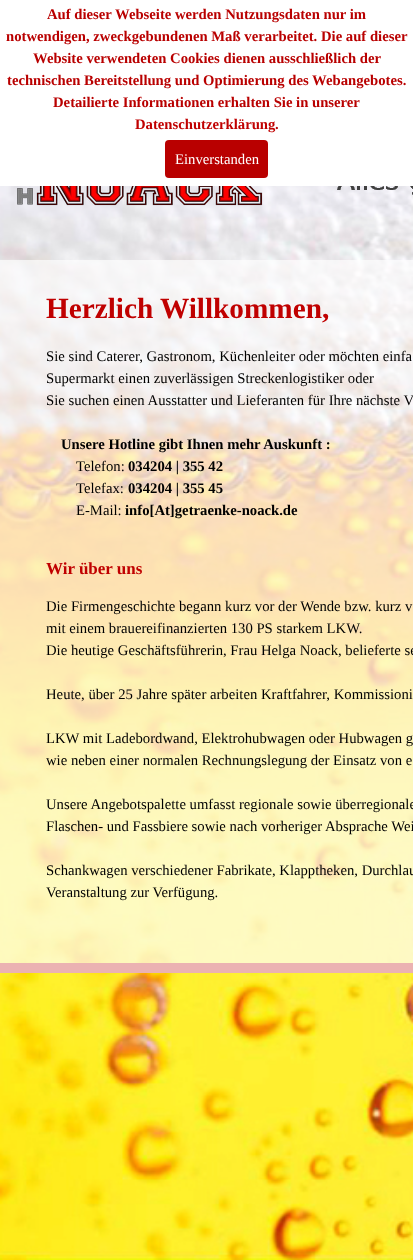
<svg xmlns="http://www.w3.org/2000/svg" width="413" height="1260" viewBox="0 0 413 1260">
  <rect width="100%" height="100%" fill="#ffffff"/>
  <text x="47" y="19" font-family="Liberation Serif" font-size="14.7" font-weight="bold" fill="#b90000">Auf dieser Webseite werden Nutzungsdaten nur im</text>
  <text x="6" y="41" font-family="Liberation Serif" font-size="14.7" font-weight="bold" fill="#b90000">notwendigen, zweckgebundenen Maß verarbeitet. Die auf dieser</text>
  <text x="33" y="63" font-family="Liberation Serif" font-size="14.7" font-weight="bold" fill="#b90000">Website verwendeten Cookies dienen ausschließlich der</text>
  <text x="7" y="85" font-family="Liberation Serif" font-size="14.7" font-weight="bold" fill="#b90000">technischen Bereitstellung und Optimierung des Webangebotes.</text>
  <text x="53" y="107" font-family="Liberation Serif" font-size="14.7" font-weight="bold" fill="#b90000">Detailierte Informationen erhalten Sie in unserer</text>
  <text x="135" y="129" font-family="Liberation Serif" font-size="14.7" font-weight="bold" fill="#c00000">Datenschutzerklärung</text>
  <text x="275" y="129" font-family="Liberation Serif" font-size="14.7" font-weight="bold" fill="#b90000">.</text>
  <rect x="165" y="140" width="103" height="38" rx="4" fill="#b90000"/>
  <text x="175" y="164" font-family="Liberation Serif" font-size="14.7" fill="#ffffff">Einverstanden</text>
  <image x="0" y="186" width="413" height="1074" href="img1.png"/>
  <image x="17" y="186" width="396" height="20" href="img2.png"/>
  <rect x="0" y="963" width="413" height="10" fill="#c00000"/>
  <rect x="0" y="260" width="413" height="713" fill="#fefefe" fill-opacity="0.7"/>
  <text x="46" y="318" font-family="Liberation Serif" font-size="29.25" font-weight="bold" fill="#c00000">Herzlich Willkommen,</text>
  <text x="46" y="361" font-family="Liberation Serif" font-size="14.7" fill="#000000">Sie sind Caterer, Gastronom, Küchenleiter oder möchten einfa</text>
  <text x="46" y="383" font-family="Liberation Serif" font-size="14.7" fill="#000000">Supermarkt einen zuverlässigen Streckenlogistiker oder</text>
  <text x="46" y="405" font-family="Liberation Serif" font-size="14.7" fill="#000000">Sie suchen einen Ausstatter und Lieferanten für Ihre nächste V</text>
  <text x="61" y="449" font-family="Liberation Serif" font-size="14.7" font-weight="bold" fill="#000000">Unsere Hotline gibt Ihnen mehr Auskunft :</text>
  <text x="76" y="471" font-family="Liberation Serif" font-size="14.7" fill="#000000">Telefon:</text>
  <text x="128" y="471" font-family="Liberation Serif" font-size="14.7" font-weight="bold" fill="#000000">034204 | 355 42</text>
  <text x="76" y="493" font-family="Liberation Serif" font-size="14.7" fill="#000000">Telefax:</text>
  <text x="128" y="493" font-family="Liberation Serif" font-size="14.7" font-weight="bold" fill="#000000">034204 | 355 45</text>
  <text x="76" y="515" font-family="Liberation Serif" font-size="14.7" fill="#000000">E-Mail:</text>
  <text x="125" y="515" font-family="Liberation Serif" font-size="14.7" font-weight="bold" fill="#000000">info[At]getraenke-noack.de</text>
  <text x="46" y="574" font-family="Liberation Serif" font-size="17" font-weight="bold" fill="#c00000">Wir über uns</text>
  <text x="46" y="611" font-family="Liberation Serif" font-size="14.7" fill="#000000">Die Firmengeschichte begann kurz vor der Wende bzw. kurz v</text>
  <text x="46" y="633" font-family="Liberation Serif" font-size="14.7" fill="#000000">mit einem brauereifinanzierten 130 PS starkem LKW.</text>
  <text x="46" y="655" font-family="Liberation Serif" font-size="14.7" fill="#000000">Die heutige Geschäftsführerin, Frau Helga Noack, belieferte se</text>
  <text x="46" y="699" font-family="Liberation Serif" font-size="14.7" fill="#000000">Heute, über 25 Jahre später arbeiten Kraftfahrer, Kommissioni</text>
  <text x="46" y="743" font-family="Liberation Serif" font-size="14.7" fill="#000000">LKW mit Ladebordwand, Elektrohubwagen oder Hubwagen g</text>
  <text x="46" y="765" font-family="Liberation Serif" font-size="14.7" fill="#000000">wie neben einer normalen Rechnungslegung der Einsatz von e</text>
  <text x="46" y="809" font-family="Liberation Serif" font-size="14.7" fill="#000000">Unsere Angebotspalette umfasst regionale sowie überregionale</text>
  <text x="46" y="831" font-family="Liberation Serif" font-size="14.7" fill="#000000">Flaschen- und Fassbiere sowie nach vorheriger Absprache Wei</text>
  <text x="46" y="875" font-family="Liberation Serif" font-size="14.7" fill="#000000">Schankwagen verschiedener Fabrikate, Klapptheken, Durchlau</text>
  <text x="46" y="897" font-family="Liberation Serif" font-size="14.7" fill="#000000">Veranstaltung zur Verfügung.</text>
</svg>
